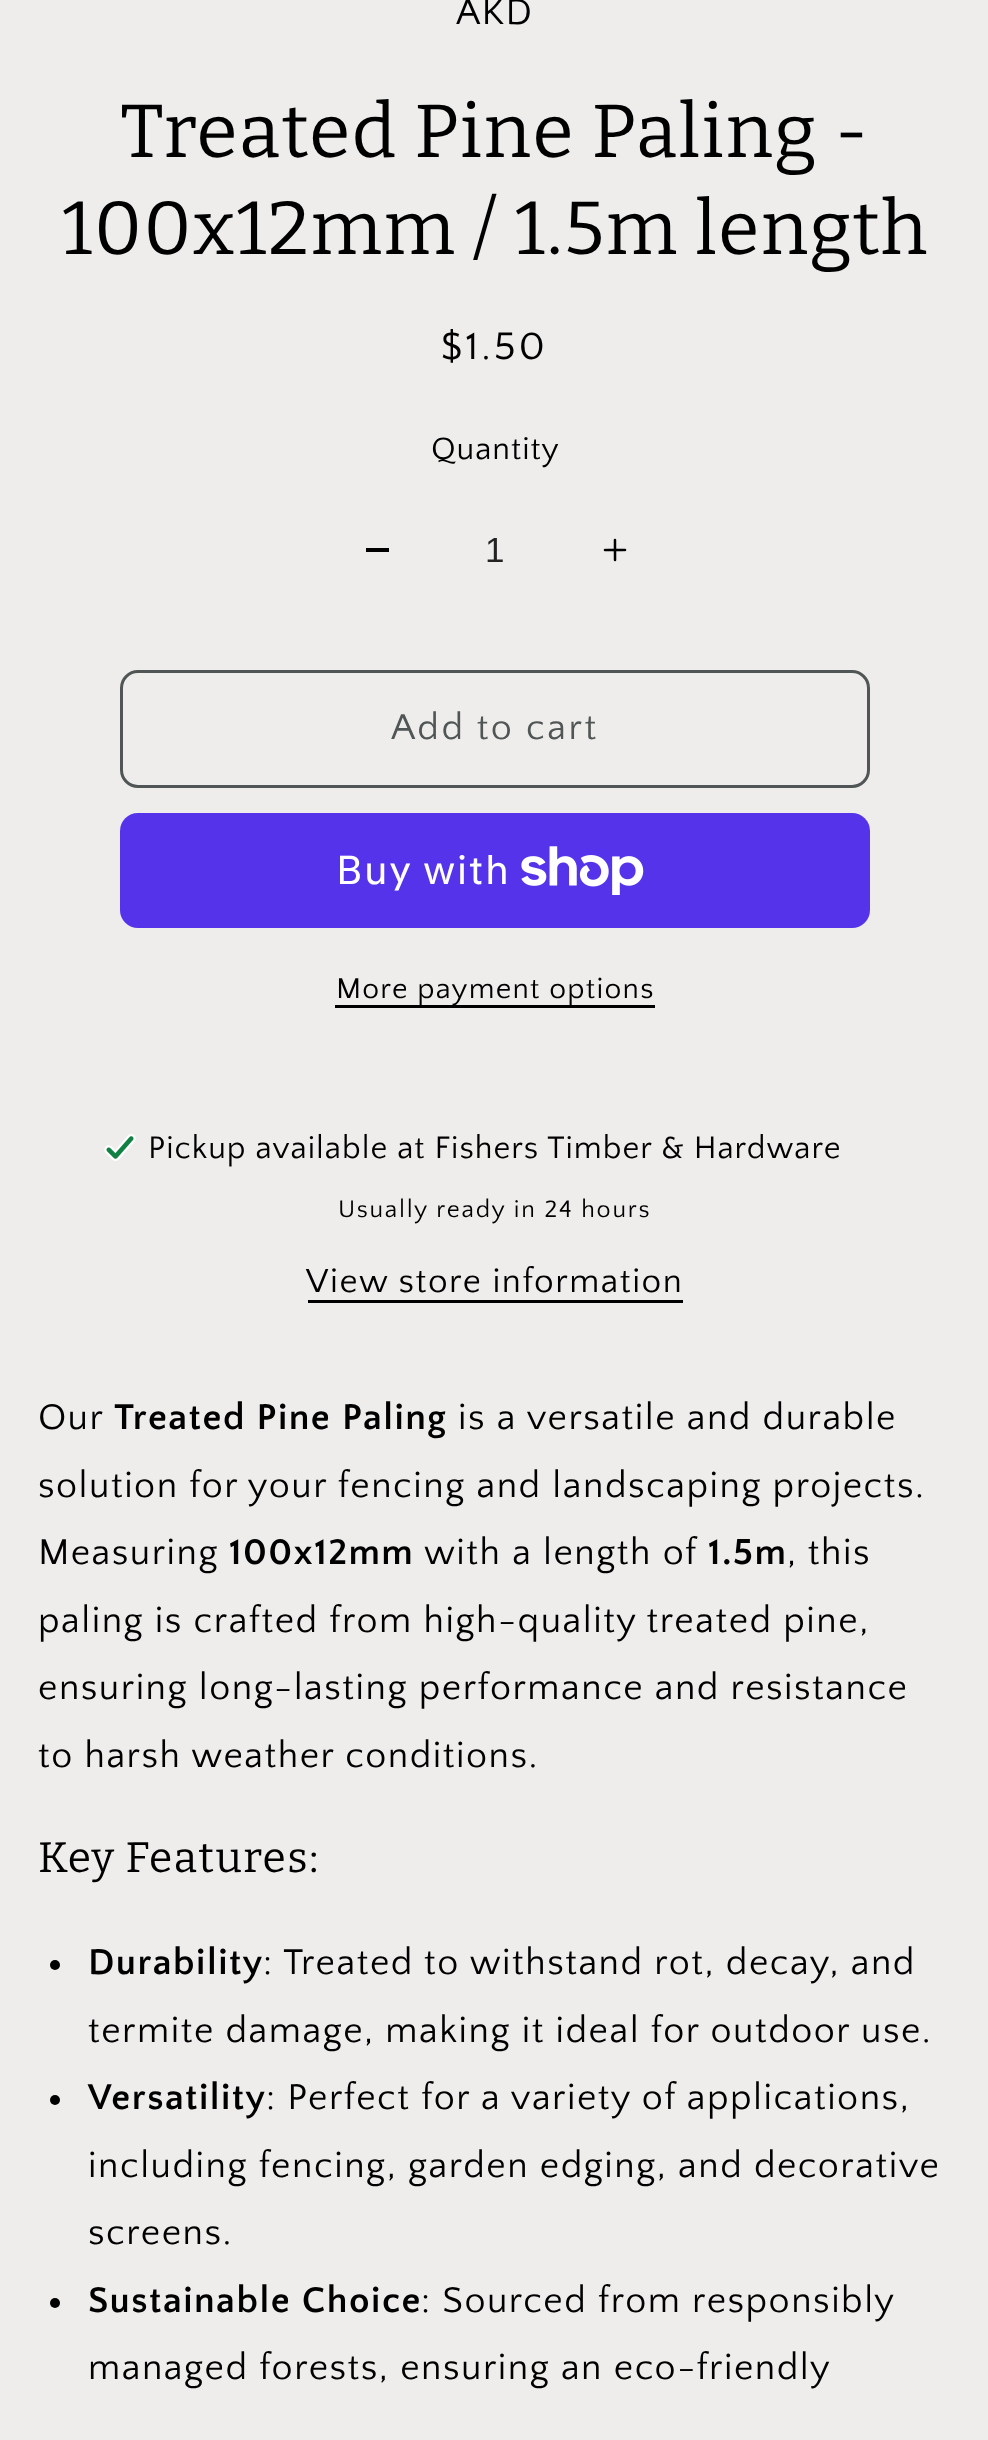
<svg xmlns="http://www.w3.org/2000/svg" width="988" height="2440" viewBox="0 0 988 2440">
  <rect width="100%" height="100%" fill="#efecec"/>
  <text x="456" y="24" font-family="Quattrocento Sans" font-size="37.5" letter-spacing="1.5" fill="#000000">AKD</text>
  <text x="120" y="157" font-family="Bitter" font-size="75" letter-spacing="1.5" fill="#000000">Treated Pine Paling -</text>
  <text x="62" y="254" font-family="Bitter" font-size="75" letter-spacing="1.5" fill="#000000">100x12mm / 1.5m length</text>
  <text x="441" y="359" font-family="Quattrocento Sans" font-size="40" letter-spacing="3.25" fill="#000000">$1.50</text>
  <text x="431" y="459" font-family="Quattrocento Sans" font-size="32.5" letter-spacing="1" fill="#000000">Quantity</text>
  <rect x="366" y="548" width="23" height="4" fill="#000000"/>
  <text x="485" y="562" font-family="Liberation Sans" font-size="35" fill="#242323">1</text>
  <image x="603" y="538" width="24" height="24" href="img1.png"/>
  <rect x="121.5" y="671.5" width="747" height="115" rx="16.5" fill="none" stroke="#505655" stroke-width="3"/>
  <text x="391" y="739" font-family="Quattrocento Sans" font-size="37.5" letter-spacing="2.5" fill="#505655">Add to cart</text>
  <rect x="120" y="813" width="750" height="115" rx="18" fill="#5433eb"/>
  <text x="336" y="884" font-family="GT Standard" font-size="40" letter-spacing="1.5" fill="#ffffff">Buy with</text>
  <image x="521" y="846" width="123" height="49" href="img2.png"/>
  <rect x="335" y="1005" width="320" height="3" fill="#000000"/>
  <text x="336" y="998" font-family="Quattrocento Sans" font-size="30" letter-spacing="1.25" fill="#000000">More payment options</text>
  <image x="104" y="1134" width="32" height="27" href="img3.png"/>
  <text x="148" y="1158" font-family="Quattrocento Sans" font-size="32.5" letter-spacing="1" fill="#000000">Pickup available at Fishers Timber &amp; Hardware</text>
  <text x="338" y="1217" font-family="Quattrocento Sans" font-size="25" letter-spacing="1.75" fill="#000000">Usually ready in 24 hours</text>
  <text x="306" y="1292" font-family="Quattrocento Sans" font-size="35" letter-spacing="1.5" fill="#000000">View store information</text>
  <rect x="308" y="1300" width="375" height="3" fill="#000000"/>
  <text x="38" y="1429" font-family="Quattrocento Sans" font-size="37.5" letter-spacing="1.5" fill="#000000">Our</text>
  <text x="114" y="1429" font-family="Quattrocento Sans" font-size="37.5" font-weight="bold" letter-spacing="1.5" fill="#000000">Treated Pine Paling</text>
  <text x="458" y="1429" font-family="Quattrocento Sans" font-size="37.5" letter-spacing="1.5" fill="#000000">is a versatile and durable</text>
  <text x="38" y="1497" font-family="Quattrocento Sans" font-size="37.5" letter-spacing="1.5" fill="#000000">solution for your fencing and landscaping projects.</text>
  <text x="38" y="1564" font-family="Quattrocento Sans" font-size="37.5" letter-spacing="1.5" fill="#000000">Measuring</text>
  <text x="229" y="1564" font-family="Quattrocento Sans" font-size="37.5" font-weight="bold" letter-spacing="1.5" fill="#000000">100x12mm</text>
  <text x="424" y="1564" font-family="Quattrocento Sans" font-size="37.5" letter-spacing="1.5" fill="#000000">with a length of</text>
  <text x="708" y="1564" font-family="Quattrocento Sans" font-size="37.5" font-weight="bold" letter-spacing="1.5" fill="#000000">1.5m</text>
  <text x="787" y="1564" font-family="Quattrocento Sans" font-size="37.5" letter-spacing="1.5" fill="#000000">, this</text>
  <text x="38" y="1632" font-family="Quattrocento Sans" font-size="37.5" letter-spacing="1.5" fill="#000000">paling is crafted from high-quality treated pine,</text>
  <text x="38" y="1699" font-family="Quattrocento Sans" font-size="37.5" letter-spacing="1.5" fill="#000000">ensuring long-lasting performance and resistance</text>
  <text x="38" y="1767" font-family="Quattrocento Sans" font-size="37.5" letter-spacing="1.5" fill="#000000">to harsh weather conditions.</text>
  <text x="38" y="1872" font-family="Bitter" font-size="42.5" letter-spacing="1.5" fill="#000000">Key Features:</text>
  <circle cx="55" cy="1965" r="5" fill="#000000"/>
  <text x="88" y="1974" font-family="Quattrocento Sans" font-size="37.5" font-weight="bold" letter-spacing="1.5" fill="#000000">Durability</text>
  <text x="263" y="1974" font-family="Quattrocento Sans" font-size="37.5" letter-spacing="1.5" fill="#000000">: Treated to withstand rot, decay, and</text>
  <text x="88" y="2042" font-family="Quattrocento Sans" font-size="37.5" letter-spacing="1.5" fill="#000000">termite damage, making it ideal for outdoor use.</text>
  <circle cx="55" cy="2100" r="5" fill="#000000"/>
  <text x="88" y="2109" font-family="Quattrocento Sans" font-size="37.5" font-weight="bold" letter-spacing="1.5" fill="#000000">Versatility</text>
  <text x="266" y="2109" font-family="Quattrocento Sans" font-size="37.5" letter-spacing="1.5" fill="#000000">: Perfect for a variety of applications,</text>
  <text x="88" y="2177" font-family="Quattrocento Sans" font-size="37.5" letter-spacing="1.5" fill="#000000">including fencing, garden edging, and decorative</text>
  <text x="88" y="2244" font-family="Quattrocento Sans" font-size="37.5" letter-spacing="1.5" fill="#000000">screens.</text>
  <circle cx="55" cy="2303" r="5" fill="#000000"/>
  <text x="88" y="2312" font-family="Quattrocento Sans" font-size="37.5" font-weight="bold" letter-spacing="1.5" fill="#000000">Sustainable Choice</text>
  <text x="421" y="2312" font-family="Quattrocento Sans" font-size="37.5" letter-spacing="1.5" fill="#000000">: Sourced from responsibly</text>
  <text x="88" y="2379" font-family="Quattrocento Sans" font-size="37.5" letter-spacing="1.5" fill="#000000">managed forests, ensuring an eco-friendly</text>
</svg>
